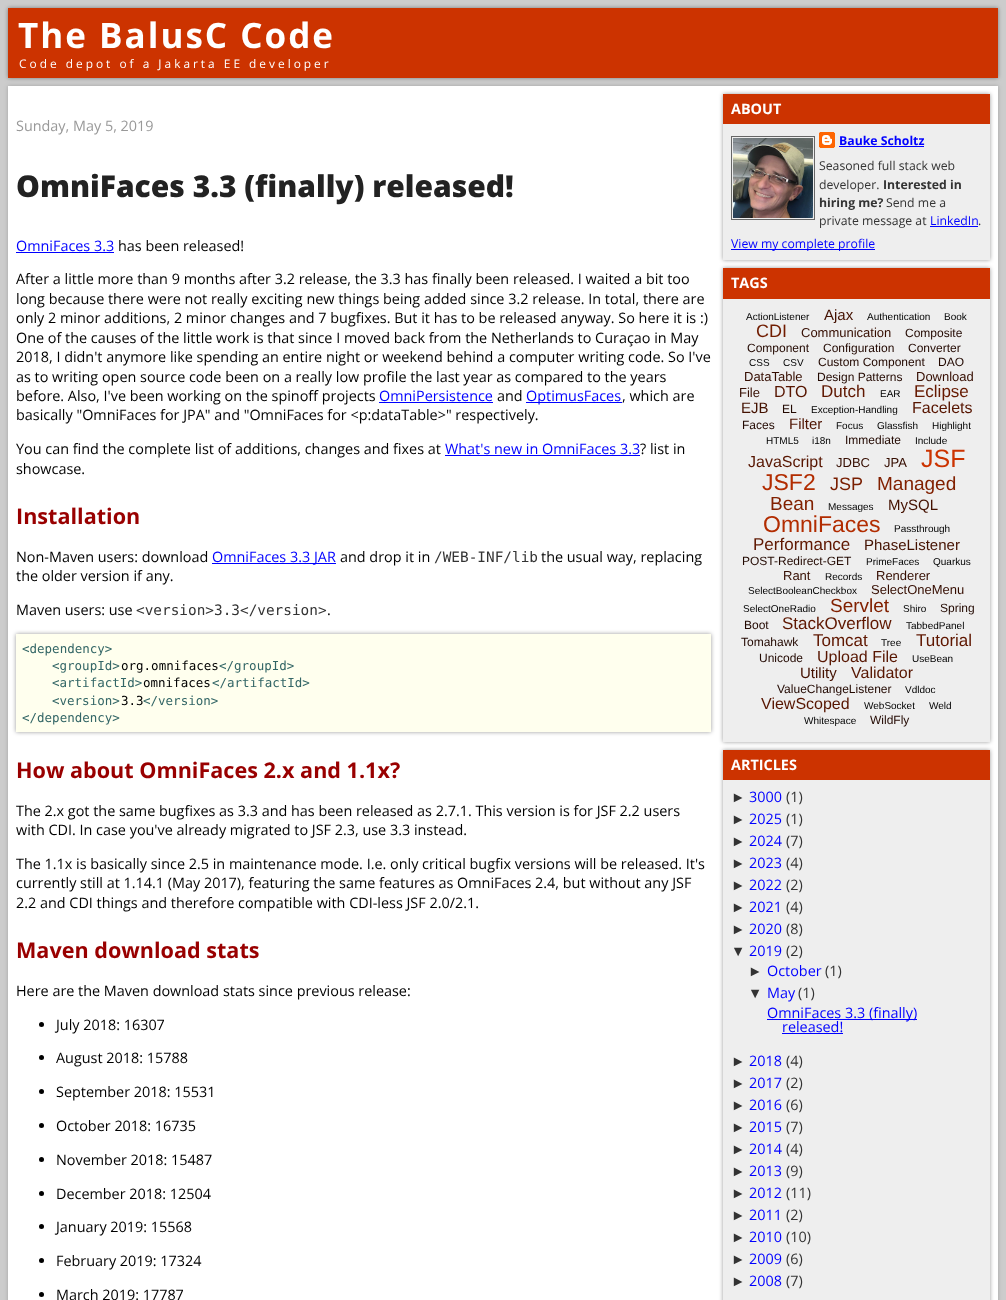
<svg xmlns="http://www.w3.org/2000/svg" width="1006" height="1300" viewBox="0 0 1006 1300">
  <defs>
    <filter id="blur1" x="-50%" y="-200%" width="200%" height="500%"><feGaussianBlur stdDeviation="2"/></filter>
  </defs>
  <rect width="100%" height="100%" fill="#cccccc"/>
  <rect x="8" y="8" width="990" height="70" fill="#000000" fill-opacity="0.4" filter="url(#blur1)"/>
  <rect x="8" y="8" width="990" height="70" fill="#cc3300"/>
  <text x="18" y="48" font-family="Open Sans" font-size="35" font-weight="bold" letter-spacing="2" fill="#ffffff">The BalusC Code</text>
  <text x="19" y="68" font-family="Open Sans" font-size="11.9" letter-spacing="3" fill="#ffffff">Code depot of a Jakarta EE developer</text>
  <rect x="8" y="86" width="990" height="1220" fill="#000000" fill-opacity="0.2" filter="url(#blur1)"/>
  <rect x="8" y="86" width="990" height="1214" fill="#ffffff"/>
  <text x="16" y="131" font-family="Open Sans" font-size="14.4" fill="#999999">Sunday, May 5, 2019</text>
  <text x="16" y="197" font-family="Open Sans" font-size="30" font-weight="800" fill="#222222">OmniFaces 3.3 (finally) released!</text>
  <text x="16" y="251" font-family="Open Sans" font-size="14.4" fill="#0000ff">OmniFaces 3.3</text>
  <rect x="16" y="252" width="98" height="1" fill="#0000ff"/>
  <text x="118" y="251" font-family="Open Sans" font-size="14.4" fill="#000000">has been released!</text>
  <text x="16" y="284" font-family="Open Sans" font-size="14.4" fill="#000000">After a little more than 9 months after 3.2 release, the 3.3 has finally been released. I waited a bit too</text>
  <text x="16" y="304" font-family="Open Sans" font-size="14.4" fill="#000000">long because there were not really exciting new things being added since 3.2 release. In total, there are</text>
  <text x="16" y="323" font-family="Open Sans" font-size="14.4" fill="#000000">only 2 minor additions, 2 minor changes and 7 bugfixes. But it has to be released anyway. So here it is :)</text>
  <text x="16" y="343" font-family="Open Sans" font-size="14.4" fill="#000000">One of the causes of the little work is that since I moved back from the Netherlands to Curaçao in May</text>
  <text x="16" y="362" font-family="Open Sans" font-size="14.4" fill="#000000">2018, I didn't anymore like spending an entire night or weekend behind a computer writing code. So I've</text>
  <text x="16" y="382" font-family="Open Sans" font-size="14.4" fill="#000000">as to writing open source code been on a really low profile the last year as compared to the years</text>
  <text x="16" y="401" font-family="Open Sans" font-size="14.4" fill="#000000">before. Also, I've been working on the spinoff projects</text>
  <text x="379" y="401" font-family="Open Sans" font-size="14.4" fill="#0000ff">OmniPersistence</text>
  <rect x="379" y="402" width="114" height="1" fill="#0000ff"/>
  <text x="497" y="401" font-family="Open Sans" font-size="14.4" fill="#000000">and</text>
  <rect x="526" y="402" width="96" height="1" fill="#0000ff"/>
  <text x="526" y="401" font-family="Open Sans" font-size="14.4" fill="#0000ff">OptimusFaces</text>
  <text x="622" y="401" font-family="Open Sans" font-size="14.4" fill="#000000">, which are</text>
  <text x="16" y="420" font-family="Open Sans" font-size="14.4" fill="#000000">basically "OmniFaces for JPA" and "OmniFaces for &lt;p:dataTable&gt;" respectively.</text>
  <text x="16" y="454" font-family="Open Sans" font-size="14.4" fill="#000000">You can find the complete list of additions, changes and fixes at</text>
  <text x="445" y="454" font-family="Open Sans" font-size="14.4" fill="#0000ff">What's new in OmniFaces 3.3</text>
  <rect x="445" y="455" width="195" height="1" fill="#0000ff"/>
  <text x="640" y="454" font-family="Open Sans" font-size="14.4" fill="#000000">? list in</text>
  <text x="16" y="474" font-family="Open Sans" font-size="14.4" fill="#000000">showcase.</text>
  <text x="16" y="524" font-family="Open Sans" font-size="21.6" font-weight="bold" fill="#990000">Installation</text>
  <text x="16" y="562" font-family="Open Sans" font-size="14.4" fill="#000000">Non-Maven users: download</text>
  <rect x="212" y="563" width="124" height="1" fill="#0000ff"/>
  <text x="212" y="562" font-family="Open Sans" font-size="14.4" fill="#0000ff">OmniFaces 3.3 JAR</text>
  <text x="340" y="562" font-family="Open Sans" font-size="14.4" fill="#000000">and drop it in</text>
  <text x="434" y="562" font-family="DejaVu Sans Mono" font-size="14.4" fill="#333333">/WEB-INF/lib</text>
  <text x="541" y="562" font-family="Open Sans" font-size="14.4" fill="#000000">the usual way, replacing</text>
  <text x="16" y="581" font-family="Open Sans" font-size="14.4" fill="#000000">the older version if any.</text>
  <text x="16" y="615" font-family="Open Sans" font-size="14.4" fill="#000000">Maven users: use</text>
  <text x="136" y="615" font-family="DejaVu Sans Mono" font-size="14.4" fill="#333333">&lt;version&gt;3.3&lt;/version&gt;</text>
  <text x="327" y="615" font-family="Open Sans" font-size="14.4" fill="#000000">.</text>
  <rect x="16" y="634" width="695" height="98" fill="#000000" fill-opacity="0.4" filter="url(#blur1)"/>
  <rect x="16" y="634" width="695" height="98" fill="#ffffee"/>
  <text x="22" y="653" font-family="DejaVu Sans Mono" font-size="12.5" fill="#336666">&lt;dependency&gt;</text>
  <text x="52" y="670" font-family="DejaVu Sans Mono" font-size="12.5" fill="#336666">&lt;groupId&gt;</text>
  <text x="121" y="670" font-family="DejaVu Sans Mono" font-size="12.5" fill="#000000">org.omnifaces</text>
  <text x="219" y="670" font-family="DejaVu Sans Mono" font-size="12.5" fill="#336666">&lt;/groupId&gt;</text>
  <text x="52" y="687" font-family="DejaVu Sans Mono" font-size="12.5" fill="#336666">&lt;artifactId&gt;</text>
  <text x="143" y="687" font-family="DejaVu Sans Mono" font-size="12.5" fill="#000000">omnifaces</text>
  <text x="212" y="687" font-family="DejaVu Sans Mono" font-size="12.5" fill="#336666">&lt;/artifactId&gt;</text>
  <text x="52" y="705" font-family="DejaVu Sans Mono" font-size="12.5" fill="#336666">&lt;version&gt;</text>
  <text x="121" y="705" font-family="DejaVu Sans Mono" font-size="12.5" fill="#000000">3.3</text>
  <text x="143" y="705" font-family="DejaVu Sans Mono" font-size="12.5" fill="#336666">&lt;/version&gt;</text>
  <text x="22" y="722" font-family="DejaVu Sans Mono" font-size="12.5" fill="#336666">&lt;/dependency&gt;</text>
  <text x="16" y="778" font-family="Open Sans" font-size="21.6" font-weight="bold" fill="#990000">How about OmniFaces 2.x and 1.1x?</text>
  <text x="16" y="816" font-family="Open Sans" font-size="14.4" fill="#000000">The 2.x got the same bugfixes as 3.3 and has been released as 2.7.1. This version is for JSF 2.2 users</text>
  <text x="16" y="835" font-family="Open Sans" font-size="14.4" fill="#000000">with CDI. In case you've already migrated to JSF 2.3, use 3.3 instead.</text>
  <text x="16" y="869" font-family="Open Sans" font-size="14.4" fill="#000000">The 1.1x is basically since 2.5 in maintenance mode. I.e. only critical bugfix versions will be released. It's</text>
  <text x="16" y="888" font-family="Open Sans" font-size="14.4" fill="#000000">currently still at 1.14.1 (May 2017), featuring the same features as OmniFaces 2.4, but without any JSF</text>
  <text x="16" y="908" font-family="Open Sans" font-size="14.4" fill="#000000">2.2 and CDI things and therefore compatible with CDI-less JSF 2.0/2.1.</text>
  <text x="16" y="958" font-family="Open Sans" font-size="21.6" font-weight="bold" fill="#990000">Maven download stats</text>
  <text x="16" y="996" font-family="Open Sans" font-size="14.4" fill="#000000">Here are the Maven download stats since previous release:</text>
  <circle cx="41.5" cy="1024.5" r="2.5" fill="#000000"/>
  <text x="56" y="1030" font-family="Open Sans" font-size="14.4" fill="#000000">July 2018: 16307</text>
  <circle cx="41.5" cy="1057.5" r="2.5" fill="#000000"/>
  <text x="56" y="1063" font-family="Open Sans" font-size="14.4" fill="#000000">August 2018: 15788</text>
  <circle cx="41.5" cy="1091.5" r="2.5" fill="#000000"/>
  <text x="56" y="1097" font-family="Open Sans" font-size="14.4" fill="#000000">September 2018: 15531</text>
  <circle cx="41.5" cy="1125.5" r="2.5" fill="#000000"/>
  <text x="56" y="1131" font-family="Open Sans" font-size="14.4" fill="#000000">October 2018: 16735</text>
  <circle cx="41.5" cy="1159.5" r="2.5" fill="#000000"/>
  <text x="56" y="1165" font-family="Open Sans" font-size="14.4" fill="#000000">November 2018: 15487</text>
  <circle cx="41.5" cy="1193.5" r="2.5" fill="#000000"/>
  <text x="56" y="1199" font-family="Open Sans" font-size="14.4" fill="#000000">December 2018: 12504</text>
  <circle cx="41.5" cy="1226.5" r="2.5" fill="#000000"/>
  <text x="56" y="1232" font-family="Open Sans" font-size="14.4" fill="#000000">January 2019: 15568</text>
  <circle cx="41.5" cy="1260.5" r="2.5" fill="#000000"/>
  <text x="56" y="1266" font-family="Open Sans" font-size="14.4" fill="#000000">February 2019: 17324</text>
  <circle cx="41.5" cy="1294.5" r="2.5" fill="#000000"/>
  <text x="56" y="1300" font-family="Open Sans" font-size="14.4" fill="#000000">March 2019: 17787</text>
  <rect x="723" y="94" width="267" height="166" fill="#000000" fill-opacity="0.4" filter="url(#blur1)"/>
  <rect x="723" y="124" width="267" height="136" fill="#eeeeee"/>
  <rect x="723" y="94" width="267" height="30" fill="#cc3300"/>
  <text x="731" y="114" font-family="Open Sans" font-size="14.4" font-weight="bold" fill="#ffffff">ABOUT</text>
  <rect x="731.5" y="136.5" width="83" height="83" fill="none" stroke="#666666"/>
  <image x="733" y="138" width="80" height="80" href="img1.png"/>
  <image x="819" y="132" width="16" height="16" href="img2.png"/>
  <text x="839" y="145" font-family="Open Sans" font-size="12.25" font-weight="bold" fill="#0000ff">Bauke Scholtz</text>
  <rect x="839" y="146" width="85" height="1" fill="#0000ff"/>
  <text x="819" y="170" font-family="Open Sans" font-size="12.25" fill="#333333">Seasoned full stack web</text>
  <text x="819" y="189" font-family="Open Sans" font-size="12.25" fill="#333333">developer.</text>
  <text x="883" y="189" font-family="Open Sans" font-size="12.25" font-weight="bold" fill="#333333">Interested in</text>
  <text x="819" y="207" font-family="Open Sans" font-size="12.25" font-weight="bold" fill="#333333">hiring me?</text>
  <text x="886" y="207" font-family="Open Sans" font-size="12.25" fill="#333333">Send me a</text>
  <text x="819" y="225" font-family="Open Sans" font-size="12.25" fill="#333333">private message at</text>
  <text x="930" y="225" font-family="Open Sans" font-size="12.25" fill="#0000ff">LinkedIn</text>
  <rect x="930" y="226" width="48" height="1" fill="#0000ff"/>
  <text x="978" y="225" font-family="Open Sans" font-size="12.25" fill="#333333">.</text>
  <rect x="731" y="249" width="144" height="1" fill="#0000ff"/>
  <text x="731" y="248" font-family="Open Sans" font-size="12.25" fill="#0000ff">View my complete profile</text>
  <rect x="723" y="268" width="267" height="474" fill="#000000" fill-opacity="0.4" filter="url(#blur1)"/>
  <rect x="723" y="299" width="267" height="443" fill="#eeeeee"/>
  <rect x="723" y="268" width="267" height="31" fill="#cc3300"/>
  <text x="731" y="288" font-family="Open Sans" font-size="14.4" font-weight="bold" fill="#ffffff">TAGS</text>
  <text x="746" y="320" font-family="Liberation Sans" font-size="10" fill="#000000">ActionListener</text>
  <text x="824" y="320" font-family="Liberation Sans" font-size="15" fill="#441100">Ajax</text>
  <text x="867" y="320" font-family="Liberation Sans" font-size="10" fill="#000000">Authentication</text>
  <text x="944" y="320" font-family="Liberation Sans" font-size="10" fill="#000000">Book</text>
  <text x="756" y="337" font-family="Liberation Sans" font-size="18" fill="#701c00">CDI</text>
  <text x="801" y="337" font-family="Liberation Sans" font-size="13" fill="#350d00">Communication</text>
  <text x="905" y="337" font-family="Liberation Sans" font-size="12" fill="#220800">Composite</text>
  <text x="747" y="352" font-family="Liberation Sans" font-size="12" fill="#220800">Component</text>
  <text x="823" y="352" font-family="Liberation Sans" font-size="12" fill="#220800">Configuration</text>
  <text x="908" y="352" font-family="Liberation Sans" font-size="12" fill="#220800">Converter</text>
  <text x="749" y="366" font-family="Liberation Sans" font-size="10" fill="#000000">CSS</text>
  <text x="783" y="366" font-family="Liberation Sans" font-size="10" fill="#000000">CSV</text>
  <text x="818" y="366" font-family="Liberation Sans" font-size="12" fill="#220800">Custom Component</text>
  <text x="938" y="366" font-family="Liberation Sans" font-size="12" fill="#220800">DAO</text>
  <text x="744" y="381" font-family="Liberation Sans" font-size="13" fill="#350d00">DataTable</text>
  <text x="817" y="381" font-family="Liberation Sans" font-size="12" fill="#220800">Design Patterns</text>
  <text x="916" y="381" font-family="Liberation Sans" font-size="13" fill="#350d00">Download</text>
  <text x="739" y="397" font-family="Liberation Sans" font-size="13" fill="#350d00">File</text>
  <text x="774" y="397" font-family="Liberation Sans" font-size="16" fill="#571500">DTO</text>
  <text x="821" y="397" font-family="Liberation Sans" font-size="17" fill="#5f1700">Dutch</text>
  <text x="880" y="397" font-family="Liberation Sans" font-size="10" fill="#000000">EAR</text>
  <text x="914" y="397" font-family="Liberation Sans" font-size="17" fill="#661900">Eclipse</text>
  <text x="741" y="413" font-family="Liberation Sans" font-size="15" fill="#441100">EJB</text>
  <text x="782" y="413" font-family="Liberation Sans" font-size="12" fill="#220800">EL</text>
  <text x="811" y="413" font-family="Liberation Sans" font-size="10" fill="#000000">Exception-Handling</text>
  <text x="912" y="413" font-family="Liberation Sans" font-size="16" fill="#571500">Facelets</text>
  <text x="742" y="429" font-family="Liberation Sans" font-size="12" fill="#220800">Faces</text>
  <text x="789" y="429" font-family="Liberation Sans" font-size="15" fill="#4e1300">Filter</text>
  <text x="836" y="429" font-family="Liberation Sans" font-size="10" fill="#000000">Focus</text>
  <text x="877" y="429" font-family="Liberation Sans" font-size="10" fill="#000000">Glassfish</text>
  <text x="932" y="429" font-family="Liberation Sans" font-size="10" fill="#000000">Highlight</text>
  <text x="766" y="444" font-family="Liberation Sans" font-size="10" fill="#000000">HTML5</text>
  <text x="812" y="444" font-family="Liberation Sans" font-size="10" fill="#000000">i18n</text>
  <text x="845" y="444" font-family="Liberation Sans" font-size="12" fill="#220800">Immediate</text>
  <text x="915" y="444" font-family="Liberation Sans" font-size="10" fill="#000000">Include</text>
  <text x="748" y="467" font-family="Liberation Sans" font-size="16" fill="#571500">JavaScript</text>
  <text x="836" y="467" font-family="Liberation Sans" font-size="13" fill="#350d00">JDBC</text>
  <text x="884" y="467" font-family="Liberation Sans" font-size="13" fill="#350d00">JPA</text>
  <text x="921" y="467" font-family="Liberation Sans" font-size="25" fill="#cc3300">JSF</text>
  <text x="762" y="490" font-family="Liberation Sans" font-size="23" fill="#b22c00">JSF2</text>
  <text x="830" y="490" font-family="Liberation Sans" font-size="18" fill="#791e00">JSP</text>
  <text x="877" y="490" font-family="Liberation Sans" font-size="19" fill="#812000">Managed</text>
  <text x="770" y="510" font-family="Liberation Sans" font-size="19" fill="#812000">Bean</text>
  <text x="828" y="510" font-family="Liberation Sans" font-size="10" fill="#000000">Messages</text>
  <text x="888" y="510" font-family="Liberation Sans" font-size="15" fill="#441100">MySQL</text>
  <text x="763" y="532" font-family="Liberation Sans" font-size="23" fill="#b22c00">OmniFaces</text>
  <text x="894" y="532" font-family="Liberation Sans" font-size="10" fill="#000000">Passthrough</text>
  <text x="753" y="550" font-family="Liberation Sans" font-size="17" fill="#5f1700">Performance</text>
  <text x="864" y="550" font-family="Liberation Sans" font-size="15" fill="#441100">PhaseListener</text>
  <text x="742" y="565" font-family="Liberation Sans" font-size="12" fill="#220800">POST-Redirect-GET</text>
  <text x="866" y="565" font-family="Liberation Sans" font-size="10" fill="#000000">PrimeFaces</text>
  <text x="933" y="565" font-family="Liberation Sans" font-size="10" fill="#000000">Quarkus</text>
  <text x="783" y="580" font-family="Liberation Sans" font-size="13" fill="#350d00">Rant</text>
  <text x="825" y="580" font-family="Liberation Sans" font-size="10" fill="#000000">Records</text>
  <text x="876" y="580" font-family="Liberation Sans" font-size="13" fill="#350d00">Renderer</text>
  <text x="748" y="594" font-family="Liberation Sans" font-size="10" fill="#000000">SelectBooleanCheckbox</text>
  <text x="871" y="594" font-family="Liberation Sans" font-size="13" fill="#350d00">SelectOneMenu</text>
  <text x="743" y="612" font-family="Liberation Sans" font-size="10" fill="#000000">SelectOneRadio</text>
  <text x="830" y="612" font-family="Liberation Sans" font-size="19" fill="#812000">Servlet</text>
  <text x="903" y="612" font-family="Liberation Sans" font-size="10" fill="#000000">Shiro</text>
  <text x="940" y="612" font-family="Liberation Sans" font-size="12" fill="#220800">Spring</text>
  <text x="744" y="629" font-family="Liberation Sans" font-size="12" fill="#220800">Boot</text>
  <text x="782" y="629" font-family="Liberation Sans" font-size="17" fill="#5f1700">StackOverflow</text>
  <text x="906" y="629" font-family="Liberation Sans" font-size="10" fill="#000000">TabbedPanel</text>
  <text x="741" y="646" font-family="Liberation Sans" font-size="12" fill="#220800">Tomahawk</text>
  <text x="813" y="646" font-family="Liberation Sans" font-size="17" fill="#5f1700">Tomcat</text>
  <text x="881" y="646" font-family="Liberation Sans" font-size="10" fill="#000000">Tree</text>
  <text x="916" y="646" font-family="Liberation Sans" font-size="17" fill="#5f1700">Tutorial</text>
  <text x="759" y="662" font-family="Liberation Sans" font-size="12" fill="#220800">Unicode</text>
  <text x="817" y="662" font-family="Liberation Sans" font-size="16" fill="#571500">Upload File</text>
  <text x="912" y="662" font-family="Liberation Sans" font-size="10" fill="#000000">UseBean</text>
  <text x="800" y="678" font-family="Liberation Sans" font-size="15" fill="#441100">Utility</text>
  <text x="851" y="678" font-family="Liberation Sans" font-size="16" fill="#571500">Validator</text>
  <text x="777" y="693" font-family="Liberation Sans" font-size="12" fill="#220800">ValueChangeListener</text>
  <text x="905" y="693" font-family="Liberation Sans" font-size="10" fill="#000000">Vdldoc</text>
  <text x="761" y="709" font-family="Liberation Sans" font-size="16" fill="#571500">ViewScoped</text>
  <text x="864" y="709" font-family="Liberation Sans" font-size="10" fill="#000000">WebSocket</text>
  <text x="929" y="709" font-family="Liberation Sans" font-size="10" fill="#000000">Weld</text>
  <text x="804" y="724" font-family="Liberation Sans" font-size="10" fill="#000000">Whitespace</text>
  <text x="870" y="724" font-family="Liberation Sans" font-size="12" fill="#220800">WildFly</text>
  <rect x="723" y="750" width="267" height="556" fill="#000000" fill-opacity="0.4" filter="url(#blur1)"/>
  <rect x="723" y="780" width="267" height="520" fill="#eeeeee"/>
  <rect x="723" y="750" width="267" height="30" fill="#cc3300"/>
  <text x="731" y="770" font-family="Open Sans" font-size="14.4" font-weight="bold" fill="#ffffff">ARTICLES</text>
  <text x="731" y="802" font-family="Liberation Sans" font-size="14.4" fill="#333333">►</text>
  <text x="749" y="802" font-family="Open Sans" font-size="14.4" fill="#0000ff">3000</text>
  <text x="786" y="802" font-family="Open Sans" font-size="14.4" fill="#333333">(1)</text>
  <text x="731" y="824" font-family="Liberation Sans" font-size="14.4" fill="#333333">►</text>
  <text x="749" y="824" font-family="Open Sans" font-size="14.4" fill="#0000ff">2025</text>
  <text x="786" y="824" font-family="Open Sans" font-size="14.4" fill="#333333">(1)</text>
  <text x="731" y="846" font-family="Liberation Sans" font-size="14.4" fill="#333333">►</text>
  <text x="749" y="846" font-family="Open Sans" font-size="14.4" fill="#0000ff">2024</text>
  <text x="786" y="846" font-family="Open Sans" font-size="14.4" fill="#333333">(7)</text>
  <text x="731" y="868" font-family="Liberation Sans" font-size="14.4" fill="#333333">►</text>
  <text x="749" y="868" font-family="Open Sans" font-size="14.4" fill="#0000ff">2023</text>
  <text x="786" y="868" font-family="Open Sans" font-size="14.4" fill="#333333">(4)</text>
  <text x="731" y="890" font-family="Liberation Sans" font-size="14.4" fill="#333333">►</text>
  <text x="749" y="890" font-family="Open Sans" font-size="14.4" fill="#0000ff">2022</text>
  <text x="786" y="890" font-family="Open Sans" font-size="14.4" fill="#333333">(2)</text>
  <text x="731" y="912" font-family="Liberation Sans" font-size="14.4" fill="#333333">►</text>
  <text x="749" y="912" font-family="Open Sans" font-size="14.4" fill="#0000ff">2021</text>
  <text x="786" y="912" font-family="Open Sans" font-size="14.4" fill="#333333">(4)</text>
  <text x="731" y="934" font-family="Liberation Sans" font-size="14.4" fill="#333333">►</text>
  <text x="749" y="934" font-family="Open Sans" font-size="14.4" fill="#0000ff">2020</text>
  <text x="786" y="934" font-family="Open Sans" font-size="14.4" fill="#333333">(8)</text>
  <text x="731" y="956" font-family="Liberation Sans" font-size="14.4" fill="#333333">▼</text>
  <text x="749" y="956" font-family="Open Sans" font-size="14.4" fill="#0000ff">2019</text>
  <text x="786" y="956" font-family="Open Sans" font-size="14.4" fill="#333333">(2)</text>
  <text x="748" y="976" font-family="Liberation Sans" font-size="14.4" fill="#333333">►</text>
  <text x="767" y="976" font-family="Open Sans" font-size="14.4" fill="#0000ff">October</text>
  <text x="825" y="976" font-family="Open Sans" font-size="14.4" fill="#333333">(1)</text>
  <text x="748" y="998" font-family="Liberation Sans" font-size="14.4" fill="#333333">▼</text>
  <text x="767" y="998" font-family="Open Sans" font-size="14.4" fill="#0000ff">May</text>
  <text x="798" y="998" font-family="Open Sans" font-size="14.4" fill="#333333">(1)</text>
  <rect x="767" y="1019" width="150" height="1" fill="#0000ff"/>
  <text x="767" y="1018" font-family="Open Sans" font-size="14.4" fill="#0000ff">OmniFaces 3.3 (finally)</text>
  <text x="782" y="1032" font-family="Open Sans" font-size="14.4" fill="#0000ff">released!</text>
  <rect x="782" y="1033" width="61" height="1" fill="#0000ff"/>
  <text x="731" y="1066" font-family="Liberation Sans" font-size="14.4" fill="#333333">►</text>
  <text x="749" y="1066" font-family="Open Sans" font-size="14.4" fill="#0000ff">2018</text>
  <text x="786" y="1066" font-family="Open Sans" font-size="14.4" fill="#333333">(4)</text>
  <text x="731" y="1088" font-family="Liberation Sans" font-size="14.4" fill="#333333">►</text>
  <text x="749" y="1088" font-family="Open Sans" font-size="14.4" fill="#0000ff">2017</text>
  <text x="786" y="1088" font-family="Open Sans" font-size="14.4" fill="#333333">(2)</text>
  <text x="731" y="1110" font-family="Liberation Sans" font-size="14.4" fill="#333333">►</text>
  <text x="749" y="1110" font-family="Open Sans" font-size="14.4" fill="#0000ff">2016</text>
  <text x="786" y="1110" font-family="Open Sans" font-size="14.4" fill="#333333">(6)</text>
  <text x="731" y="1132" font-family="Liberation Sans" font-size="14.4" fill="#333333">►</text>
  <text x="749" y="1132" font-family="Open Sans" font-size="14.4" fill="#0000ff">2015</text>
  <text x="786" y="1132" font-family="Open Sans" font-size="14.4" fill="#333333">(7)</text>
  <text x="731" y="1154" font-family="Liberation Sans" font-size="14.4" fill="#333333">►</text>
  <text x="749" y="1154" font-family="Open Sans" font-size="14.4" fill="#0000ff">2014</text>
  <text x="786" y="1154" font-family="Open Sans" font-size="14.4" fill="#333333">(4)</text>
  <text x="731" y="1176" font-family="Liberation Sans" font-size="14.4" fill="#333333">►</text>
  <text x="749" y="1176" font-family="Open Sans" font-size="14.4" fill="#0000ff">2013</text>
  <text x="786" y="1176" font-family="Open Sans" font-size="14.4" fill="#333333">(9)</text>
  <text x="731" y="1198" font-family="Liberation Sans" font-size="14.4" fill="#333333">►</text>
  <text x="749" y="1198" font-family="Open Sans" font-size="14.4" fill="#0000ff">2012</text>
  <text x="786" y="1198" font-family="Open Sans" font-size="14.4" fill="#333333">(11)</text>
  <text x="731" y="1220" font-family="Liberation Sans" font-size="14.4" fill="#333333">►</text>
  <text x="749" y="1220" font-family="Open Sans" font-size="14.4" fill="#0000ff">2011</text>
  <text x="786" y="1220" font-family="Open Sans" font-size="14.4" fill="#333333">(2)</text>
  <text x="731" y="1242" font-family="Liberation Sans" font-size="14.4" fill="#333333">►</text>
  <text x="749" y="1242" font-family="Open Sans" font-size="14.4" fill="#0000ff">2010</text>
  <text x="786" y="1242" font-family="Open Sans" font-size="14.4" fill="#333333">(10)</text>
  <text x="731" y="1264" font-family="Liberation Sans" font-size="14.4" fill="#333333">►</text>
  <text x="749" y="1264" font-family="Open Sans" font-size="14.4" fill="#0000ff">2009</text>
  <text x="786" y="1264" font-family="Open Sans" font-size="14.4" fill="#333333">(6)</text>
  <text x="731" y="1286" font-family="Liberation Sans" font-size="14.4" fill="#333333">►</text>
  <text x="749" y="1286" font-family="Open Sans" font-size="14.4" fill="#0000ff">2008</text>
  <text x="786" y="1286" font-family="Open Sans" font-size="14.4" fill="#333333">(7)</text>
</svg>
